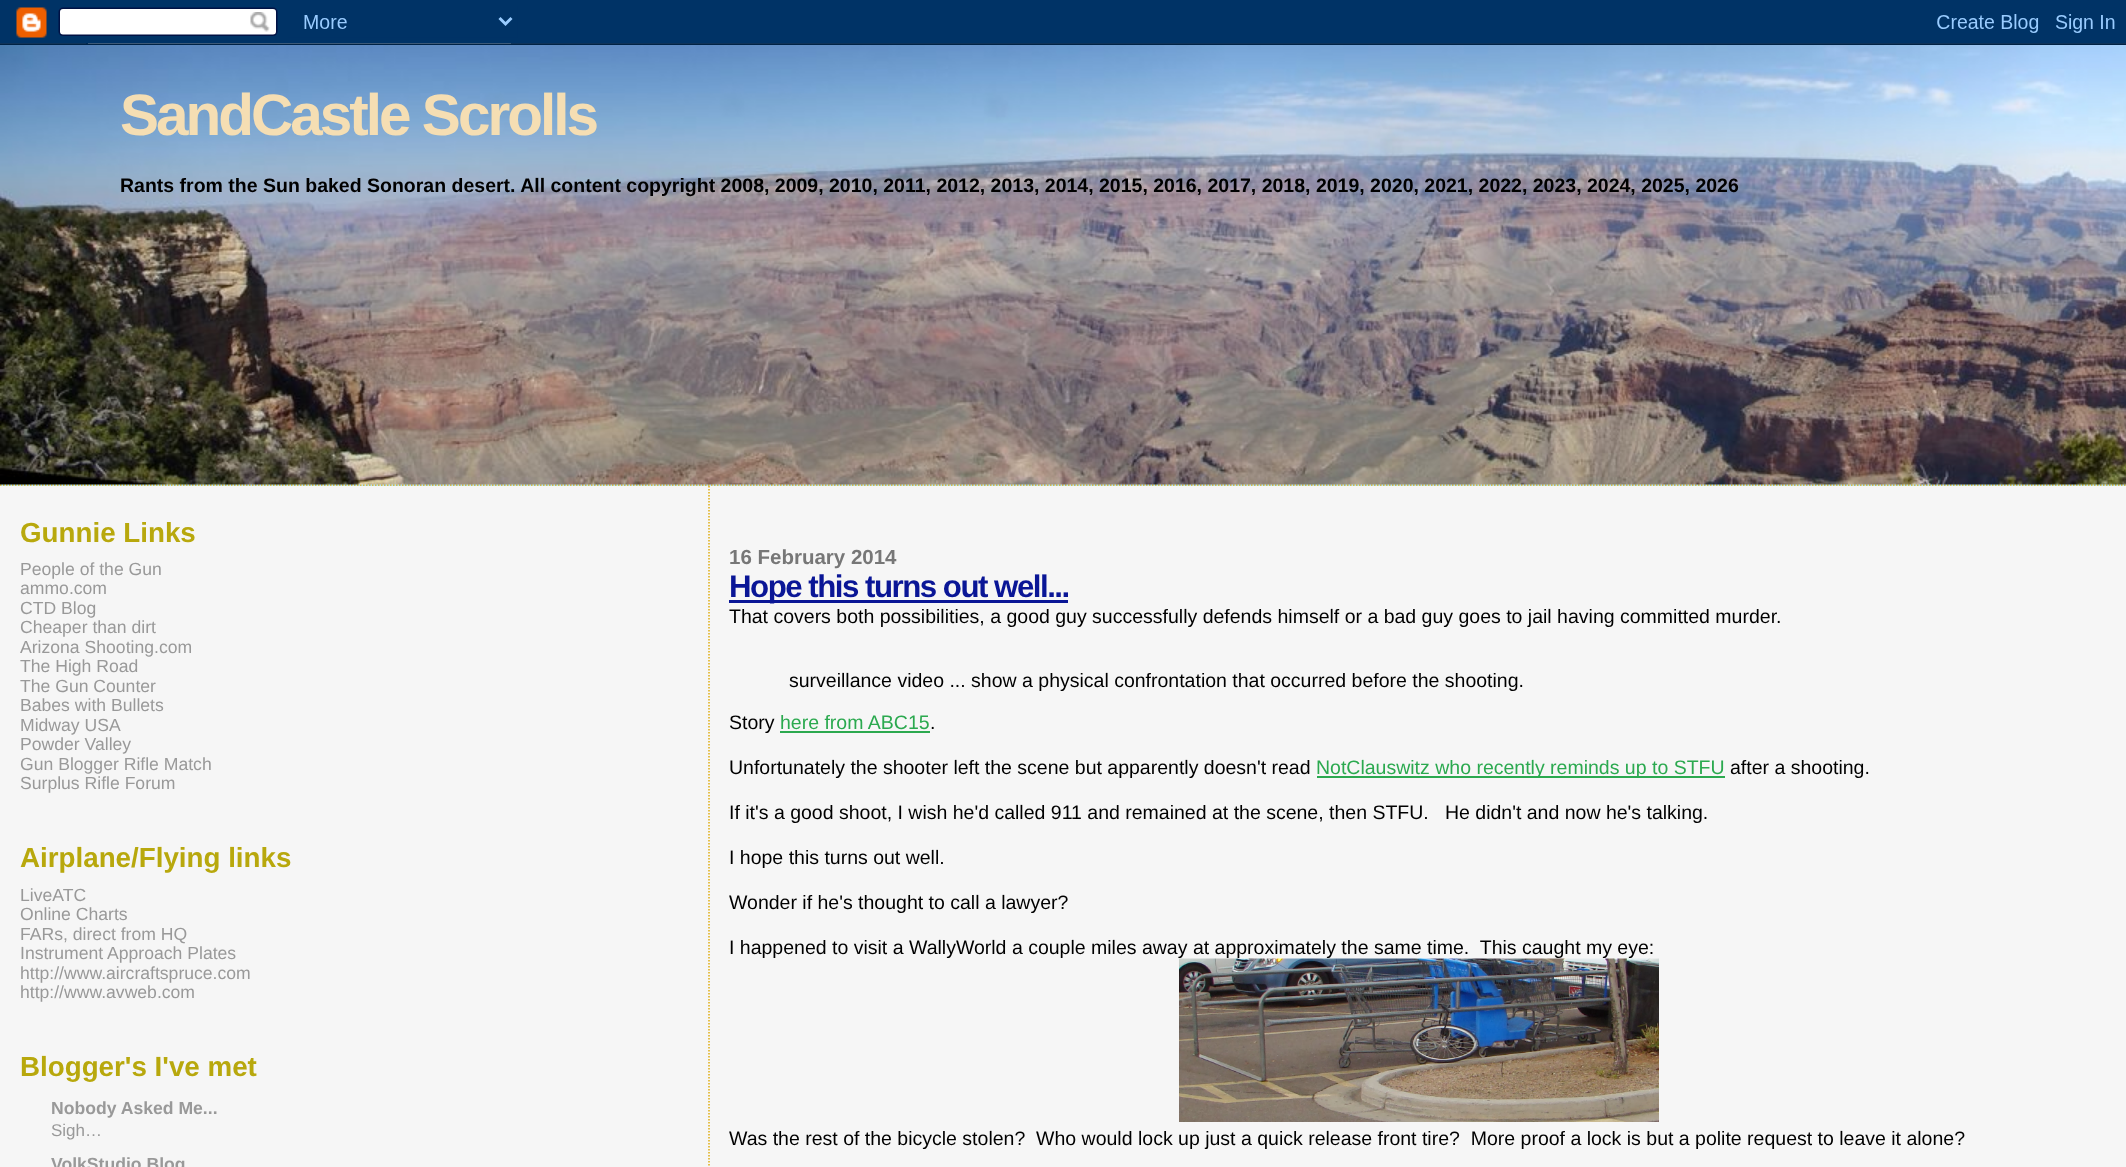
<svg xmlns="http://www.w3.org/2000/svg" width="2126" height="1167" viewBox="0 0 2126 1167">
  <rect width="100%" height="100%" fill="#f6f6f6"/>
  <image x="0" y="0" width="2126" height="45" href="img1.png"/>
  <rect x="0" y="484" width="2126" height="2" fill="#b3e6f5"/>
  <path d="M0 485H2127" fill="none" stroke="#e0ad12" stroke-width="1.5" stroke-dasharray="1.5 1.5"/>
  <image x="0" y="45" width="2126" height="440" href="img2.png"/>
  <text x="120" y="135" font-family="Liberation Sans" font-size="58.5" font-weight="bold" letter-spacing="-3" fill="#f5deb3">SandCastle Scrolls</text>
  <text x="120" y="192" font-family="Liberation Sans" font-size="19.5" font-weight="bold" fill="#000000">Rants from the Sun baked Sonoran desert. All content copyright 2008, 2009, 2010, 2011, 2012, 2013, 2014, 2015, 2016, 2017, 2018, 2019, 2020, 2021, 2022, 2023, 2024, 2025, 2026</text>
  <text x="20" y="542" font-family="Liberation Sans" font-size="27.75" font-weight="bold" fill="#b8a80d">Gunnie Links</text>
  <text x="20" y="575" font-family="Liberation Sans" font-size="17.6" fill="#999999">People of the Gun</text>
  <text x="20" y="594" font-family="Liberation Sans" font-size="17.6" fill="#999999">ammo.com</text>
  <text x="20" y="614" font-family="Liberation Sans" font-size="17.6" fill="#999999">CTD Blog</text>
  <text x="20" y="633" font-family="Liberation Sans" font-size="17.6" fill="#999999">Cheaper than dirt</text>
  <text x="20" y="653" font-family="Liberation Sans" font-size="17.6" fill="#999999">Arizona Shooting.com</text>
  <text x="20" y="672" font-family="Liberation Sans" font-size="17.6" fill="#999999">The High Road</text>
  <text x="20" y="692" font-family="Liberation Sans" font-size="17.6" fill="#999999">The Gun Counter</text>
  <text x="20" y="711" font-family="Liberation Sans" font-size="17.6" fill="#999999">Babes with Bullets</text>
  <text x="20" y="731" font-family="Liberation Sans" font-size="17.6" fill="#999999">Midway USA</text>
  <text x="20" y="750" font-family="Liberation Sans" font-size="17.6" fill="#999999">Powder Valley</text>
  <text x="20" y="770" font-family="Liberation Sans" font-size="17.6" fill="#999999">Gun Blogger Rifle Match</text>
  <text x="20" y="789" font-family="Liberation Sans" font-size="17.6" fill="#999999">Surplus Rifle Forum</text>
  <text x="20" y="867" font-family="Liberation Sans" font-size="27.75" font-weight="bold" fill="#b8a80d">Airplane/Flying links</text>
  <text x="20" y="901" font-family="Liberation Sans" font-size="17.6" fill="#999999">LiveATC</text>
  <text x="20" y="920" font-family="Liberation Sans" font-size="17.6" fill="#999999">Online Charts</text>
  <text x="20" y="940" font-family="Liberation Sans" font-size="17.6" fill="#999999">FARs, direct from HQ</text>
  <text x="20" y="959" font-family="Liberation Sans" font-size="17.6" fill="#999999">Instrument Approach Plates</text>
  <text x="20" y="979" font-family="Liberation Sans" font-size="17.6" fill="#999999">http://www.aircraftspruce.com</text>
  <text x="20" y="998" font-family="Liberation Sans" font-size="17.6" fill="#999999">http://www.avweb.com</text>
  <text x="20" y="1076" font-family="Liberation Sans" font-size="27.75" font-weight="bold" fill="#b8a80d">Blogger's I've met</text>
  <text x="51" y="1114" font-family="Liberation Sans" font-size="17.6" font-weight="bold" fill="#999999">Nobody Asked Me...</text>
  <text x="51" y="1136" font-family="Liberation Sans" font-size="17" fill="#999999">Sigh…</text>
  <text x="51" y="1170" font-family="Liberation Sans" font-size="17.6" font-weight="bold" fill="#999999">VolkStudio Blog</text>
  <path d="M709 486V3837" fill="none" stroke="#e0ad12" stroke-width="1.5" stroke-dasharray="1.5 1.5"/>
  <text x="729" y="564" font-family="Liberation Sans" font-size="20.5" font-weight="bold" fill="#777777">16 February 2014</text>
  <rect x="729" y="600" width="339" height="3" fill="#0a1696"/>
  <text x="729" y="597" font-family="Liberation Sans" font-size="31.25" font-weight="bold" letter-spacing="-1.5" fill="#0a1696">Hope this turns out well...</text>
  <text x="729" y="623" font-family="Liberation Sans" font-size="19.5" fill="#000000">That covers both possibilities, a good guy successfully defends himself or a bad guy goes to jail having committed murder.</text>
  <text x="789" y="687" font-family="Liberation Sans" font-size="19.5" fill="#000000">surveillance video ... show a physical confrontation that occurred before the shooting.</text>
  <text x="729" y="729" font-family="Liberation Sans" font-size="19.5" fill="#000000">Story</text>
  <text x="780" y="729" font-family="Liberation Sans" font-size="19.5" fill="#2ba94f">here from ABC15</text>
  <rect x="780" y="731" width="150" height="2" fill="#2ba94f"/>
  <text x="930" y="729" font-family="Liberation Sans" font-size="19.5" fill="#000000">.</text>
  <text x="729" y="774" font-family="Liberation Sans" font-size="19.5" fill="#000000">Unfortunately the shooter left the scene but apparently doesn't read</text>
  <rect x="1317" y="776" width="408" height="2" fill="#2ba94f"/>
  <text x="1316" y="774" font-family="Liberation Sans" font-size="19.5" fill="#2ba94f">NotClauswitz who recently reminds up to STFU</text>
  <text x="1730" y="774" font-family="Liberation Sans" font-size="19.5" fill="#000000">after a shooting.</text>
  <text x="729" y="819" font-family="Liberation Sans" font-size="19.5" fill="#000000" xml:space="preserve">If it's a good shoot, I wish he'd called 911 and remained at the scene, then STFU.   He didn't and now he's talking.</text>
  <text x="729" y="864" font-family="Liberation Sans" font-size="19.5" fill="#000000">I hope this turns out well.</text>
  <text x="729" y="909" font-family="Liberation Sans" font-size="19.5" fill="#000000">Wonder if he's thought to call a lawyer?</text>
  <text x="729" y="954" font-family="Liberation Sans" font-size="19.5" fill="#000000" xml:space="preserve">I happened to visit a WallyWorld a couple miles away at approximately the same time.  This caught my eye:</text>
  <image x="1179" y="958" width="480" height="164" href="img3.png"/>
  <text x="729" y="1145" font-family="Liberation Sans" font-size="19.5" fill="#000000" xml:space="preserve">Was the rest of the bicycle stolen?  Who would lock up just a quick release front tire?  More proof a lock is but a polite request to leave it alone?</text>
</svg>
